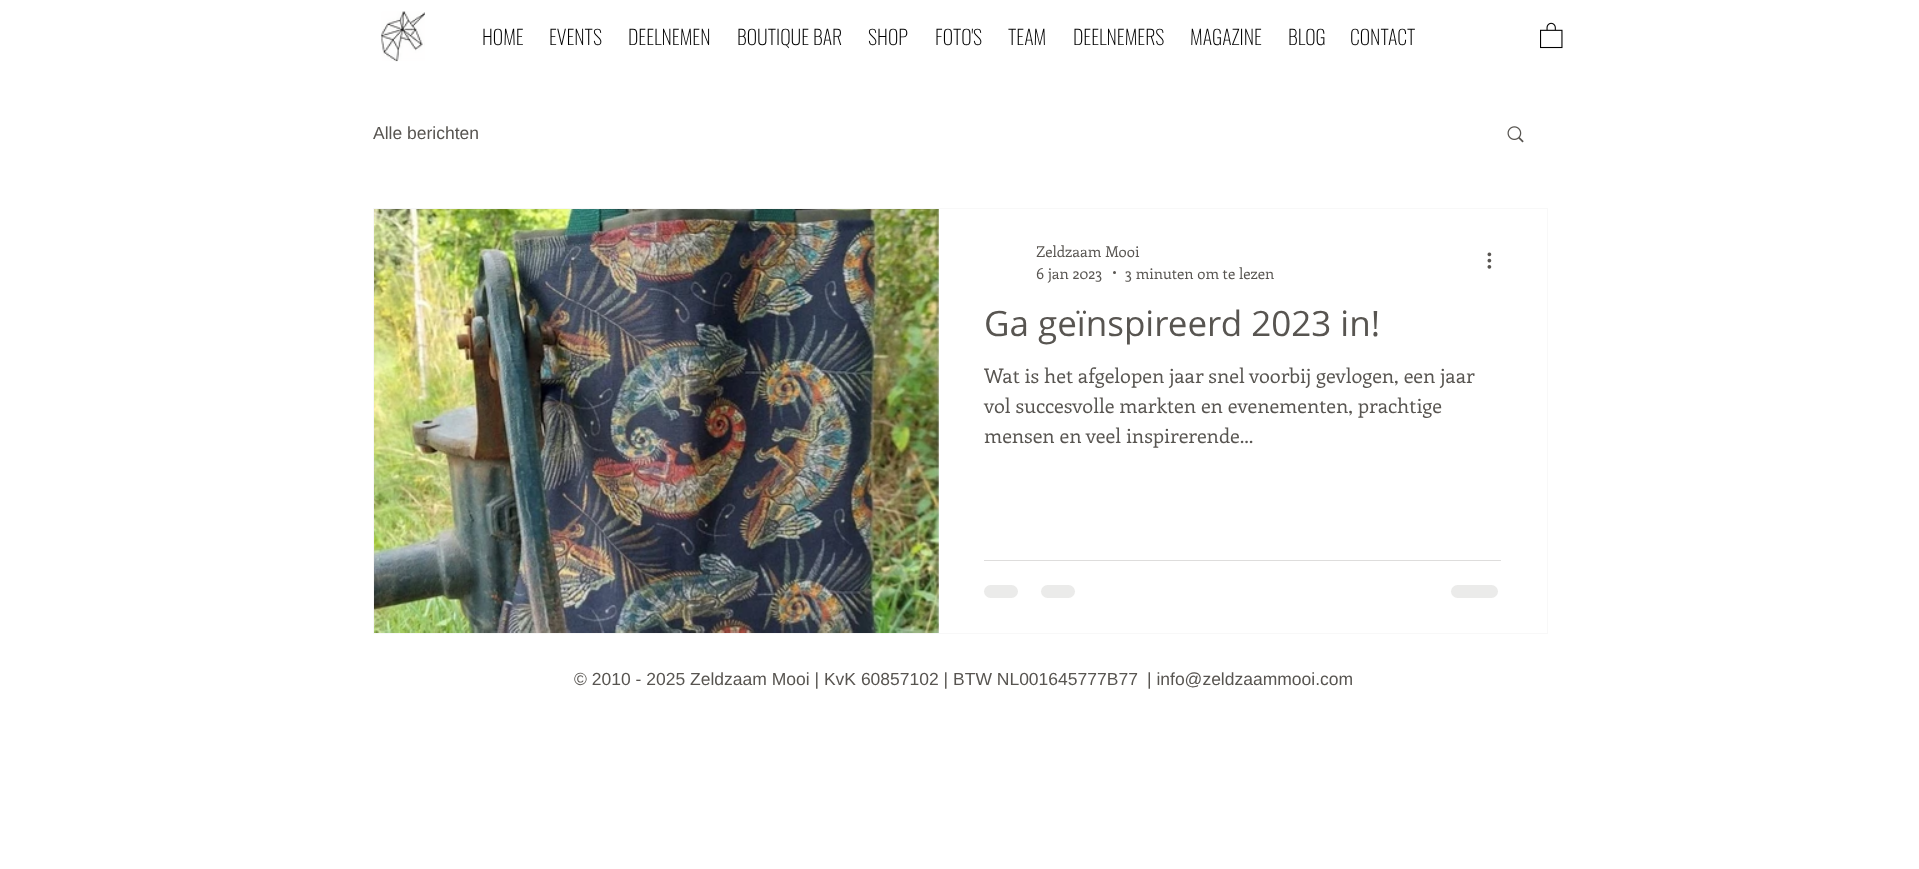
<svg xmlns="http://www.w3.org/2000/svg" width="1919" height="869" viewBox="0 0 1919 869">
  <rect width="100%" height="100%" fill="#ffffff"/>
  <image x="381" y="11" width="44" height="51" href="img1.png"/>
  <text x="482" y="45" font-family="Oswald" font-size="20" font-weight="200" fill="#000000">HOME</text>
  <text x="549" y="45" font-family="Oswald" font-size="20" font-weight="200" fill="#000000">EVENTS</text>
  <text x="628" y="45" font-family="Oswald" font-size="20" font-weight="200" fill="#000000">DEELNEMEN</text>
  <text x="737" y="45" font-family="Oswald" font-size="20" font-weight="200" fill="#000000">BOUTIQUE BAR</text>
  <text x="868" y="45" font-family="Oswald" font-size="20" font-weight="200" fill="#000000">SHOP</text>
  <text x="935" y="45" font-family="Oswald" font-size="20" font-weight="200" fill="#000000">FOTO'S</text>
  <text x="1008" y="45" font-family="Oswald" font-size="20" font-weight="200" fill="#000000">TEAM</text>
  <text x="1073" y="45" font-family="Oswald" font-size="20" font-weight="200" fill="#000000">DEELNEMERS</text>
  <text x="1190" y="45" font-family="Oswald" font-size="20" font-weight="200" fill="#000000">MAGAZINE</text>
  <text x="1288" y="45" font-family="Oswald" font-size="20" font-weight="200" fill="#000000">BLOG</text>
  <text x="1350" y="45" font-family="Oswald" font-size="20" font-weight="200" fill="#000000">CONTACT</text>
  <image x="1540" y="22" width="23" height="27" href="img2.png"/>
  <text x="373" y="139" font-family="Liberation Sans" font-size="17.5" fill="#585551">Alle berichten</text>
  <image x="1507" y="126" width="17" height="17" href="img3.png"/>
  <rect x="373.5" y="208.5" width="1174" height="425" fill="none" stroke="#f8f8f8"/>
  <image x="374" y="209" width="565" height="424" href="img4.png"/>
  <text x="1036" y="257" font-family="Enriqueta" font-size="15" fill="#585551">Zeldzaam Mooi</text>
  <text x="1036" y="279" font-family="Enriqueta" font-size="15" fill="#585551">6 jan 2023</text>
  <circle cx="1114.5" cy="272.5" r="1.5" fill="#585551"/>
  <text x="1125" y="279" font-family="Enriqueta" font-size="15" fill="#585551">3 minuten om te lezen</text>
  <image x="1487" y="252" width="5" height="17" href="img5.png"/>
  <text x="984" y="336" font-family="Open Sans" font-size="35" fill="#585551">Ga geïnspireerd 2023 in!</text>
  <text x="984" y="383" font-family="Enriqueta" font-size="20" fill="#585551">Wat is het afgelopen jaar snel voorbij gevlogen, een jaar</text>
  <text x="984" y="413" font-family="Enriqueta" font-size="20" fill="#585551">vol succesvolle markten en evenementen, prachtige</text>
  <text x="984" y="443" font-family="Enriqueta" font-size="20" fill="#585551">mensen en veel inspirerende...</text>
  <rect x="984" y="560" width="517" height="1" fill="#dedddc"/>
  <rect x="984" y="585" width="34" height="13" rx="6.5" fill="#ebebea"/>
  <rect x="1041" y="585" width="34" height="13" rx="6.5" fill="#ebebea"/>
  <rect x="1451" y="585" width="47" height="13" rx="6.5" fill="#ebebea"/>
  <text x="574" y="685" font-family="Liberation Sans" font-size="17.5" fill="#585551">© 2010 - 2025 Zeldzaam Mooi | KvK 60857102 | BTW NL001645777B77</text>
  <text x="1147" y="685" font-family="Liberation Sans" font-size="17.5" fill="#585551">| info@zeldzaammooi.com</text>
</svg>
